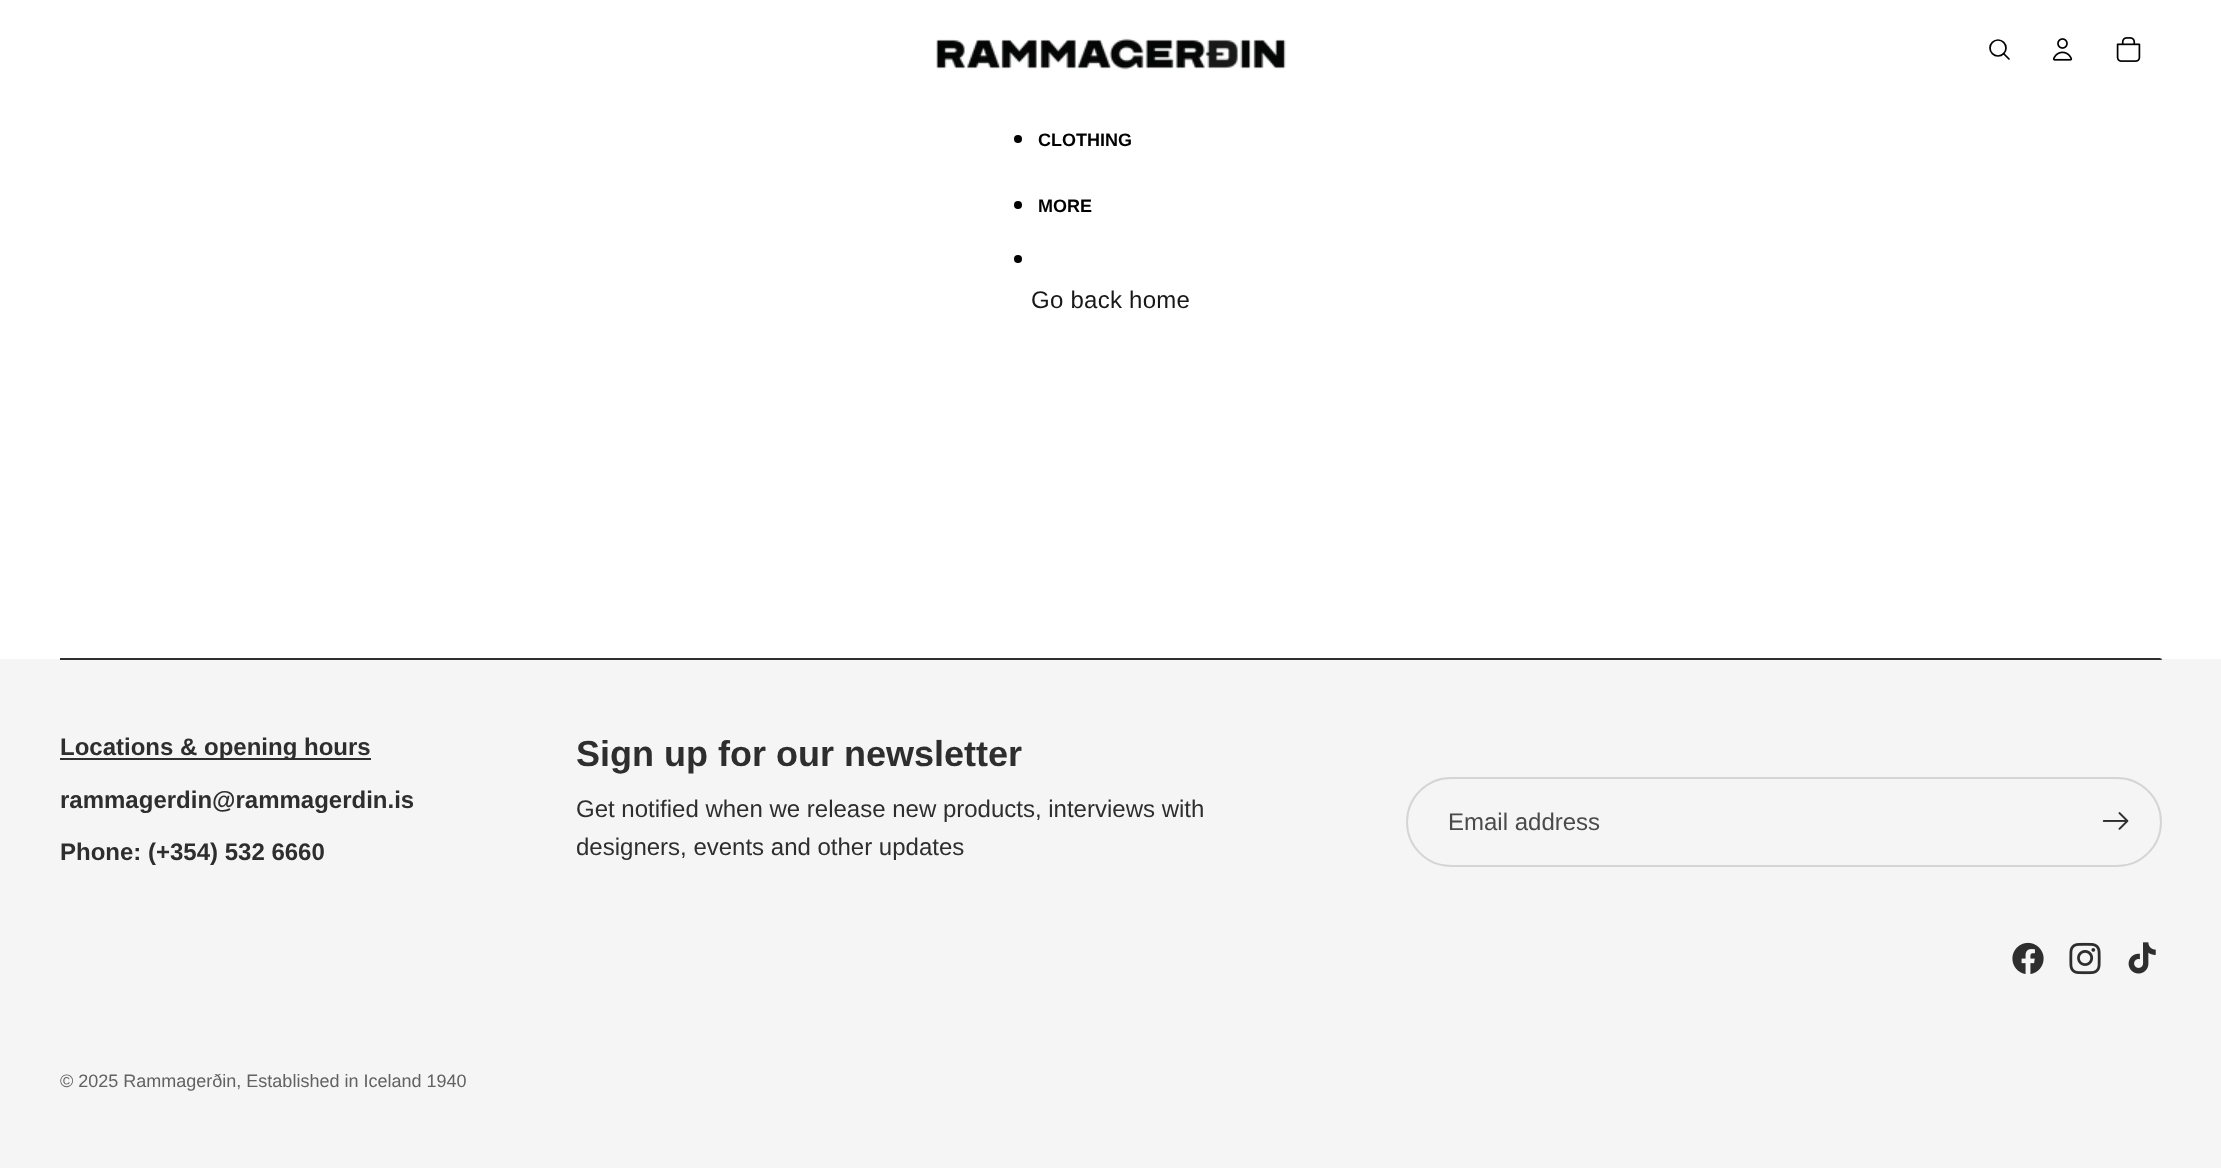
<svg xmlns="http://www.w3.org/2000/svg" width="2221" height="1168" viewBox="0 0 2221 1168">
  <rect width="100%" height="100%" fill="#ffffff"/>
  <image x="936" y="38" width="350" height="32" href="img1.png"/>
  <circle cx="1998" cy="48" r="8" fill="none" stroke="#000000" stroke-width="1.7"/>
  <path d="M2003.5 53.5L2009 59" fill="none" stroke="#000000" stroke-width="1.7" stroke-linecap="round" stroke-linejoin="round"/>
  <image x="2052" y="38" width="21" height="23" href="img2.png"/>
  <image x="2116" y="37" width="25" height="25" href="img3.png"/>
  <circle cx="1018" cy="139" r="4" fill="#000000"/>
  <text x="1038" y="146" font-family="Liberation Sans" font-size="18" font-weight="bold" fill="#000000">CLOTHING</text>
  <circle cx="1018" cy="205" r="4" fill="#000000"/>
  <text x="1038" y="212" font-family="Liberation Sans" font-size="18" font-weight="bold" fill="#000000">MORE</text>
  <circle cx="1018" cy="259" r="4" fill="#000000"/>
  <text x="1031" y="308" font-family="Liberation Sans" font-size="24" letter-spacing="0.25" fill="#181818">Go back home</text>
  <rect x="0" y="659" width="2221" height="509" fill="#f5f5f5"/>
  <path d="M2161.5 658.5V660L2160 658.5Z" fill="#000000" fill-opacity="0.81"/>
  <path d="M2162 660H60V658H2160Z" fill="#000000" fill-opacity="0.81"/>
  <rect x="60" y="758" width="311" height="2" fill="#2f2f2f"/>
  <text x="60" y="755" font-family="Liberation Sans" font-size="24" font-weight="bold" fill="#2e2e2e">Locations &amp; opening hours</text>
  <text x="60" y="808" font-family="Liberation Sans" font-size="24" font-weight="bold" fill="#2e2e2e">rammagerdin@rammagerdin.is</text>
  <text x="60" y="860" font-family="Liberation Sans" font-size="24" font-weight="bold" fill="#2e2e2e">Phone: (+354) 532 6660</text>
  <text x="576" y="766" font-family="Liberation Sans" font-size="36" font-weight="bold" fill="#2e2e2e">Sign up for our newsletter</text>
  <text x="576" y="817" font-family="Liberation Sans" font-size="24" fill="#2e2e2e">Get notified when we release new products, interviews with</text>
  <text x="576" y="855" font-family="Liberation Sans" font-size="24" fill="#2e2e2e">designers, events and other updates</text>
  <rect x="1407" y="778" width="754" height="88" rx="44" fill="none" stroke="#d5d5d5" stroke-width="2"/>
  <text x="1448" y="830" font-family="Liberation Sans" font-size="24" fill="#4a4a4a">Email address</text>
  <image x="2102" y="812" width="27" height="18" href="img4.png"/>
  <image x="2012" y="942" width="32" height="32" href="img5.png"/>
  <image x="2069" y="942" width="32" height="33" href="img6.png"/>
  <image x="2128" y="942" width="28" height="32" href="img7.png"/>
  <text x="60" y="1087" font-family="Liberation Sans" font-size="18" fill="#626262">© 2025 Rammagerðin, Established in Iceland 1940</text>
</svg>
